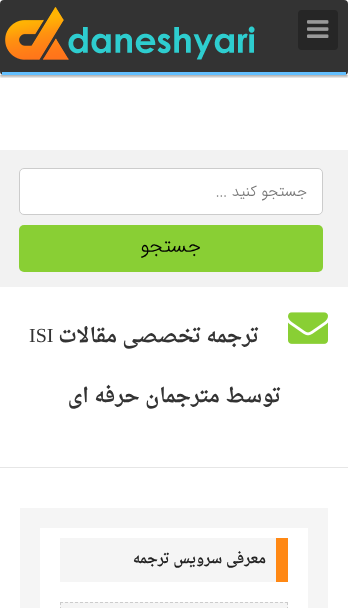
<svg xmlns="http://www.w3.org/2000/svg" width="348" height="608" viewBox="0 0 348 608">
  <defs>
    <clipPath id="clip1"><rect x="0" y="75" width="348" height="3"/></clipPath>
    <filter id="blur1" x="-50%" y="-200%" width="200%" height="500%"><feGaussianBlur stdDeviation="1"/></filter>
  </defs>
  <rect width="100%" height="100%" fill="#ffffff"/>
  <g clip-path="url(#clip1)">
    <rect x="0" y="2" width="348" height="75" fill="#000000" fill-opacity="0.3" filter="url(#blur1)"/>
  </g>
  <rect x="0" y="71" width="348" height="4" fill="#f2f2f2"/>
  <rect x="0" y="0" width="348" height="75" rx="4" fill="#333333"/>
  <rect x="2" y="72" width="344" height="3" fill="#64c0ff"/>
  <rect x="298" y="10" width="40" height="40" rx="4" fill="#262626"/>
  <image x="307" y="20" width="22" height="18" href="img1.png"/>
  <image x="5" y="7" width="250" height="53" href="img2.png"/>
  <rect x="0" y="150" width="348" height="137" fill="#f2f2f2"/>
  <rect x="19.5" y="168.5" width="303" height="46" rx="4.5" fill="#ffffff" stroke="#cccccc"/>
  <text x="307" y="196" font-family="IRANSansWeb" font-size="15" font-weight="300" direction="rtl" fill="#757575">جستجو کنید ...</text>
  <rect x="19" y="225" width="304" height="47" rx="5" fill="#89cf34"/>
  <text x="201" y="252" font-family="IRANSansWeb" font-size="20" font-weight="300" direction="rtl" fill="#000000">جستجو</text>
  <rect x="0" y="467" width="348" height="1" fill="#e6e6e6"/>
  <image x="288" y="312" width="40" height="32" href="img3.png"/>
  <text x="259" y="342" font-family="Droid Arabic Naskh" font-size="20" font-weight="bold" direction="rtl" fill="#333333">ترجمه تخصصی مقالات</text>
  <text x="29" y="342" font-family="Liberation Serif" font-size="20" fill="#333333">ISI</text>
  <text x="281" y="402" font-family="Droid Arabic Naskh" font-size="20" font-weight="bold" direction="rtl" fill="#333333">توسط مترجمان حرفه ای</text>
  <rect x="20" y="508" width="308" height="100" fill="#f5f5f5"/>
  <rect x="40" y="528" width="268" height="80" fill="#ffffff"/>
  <rect x="60" y="538" width="216" height="44" fill="#f5f5f5"/>
  <rect x="276" y="538" width="12" height="44" fill="#ff8814"/>
  <text x="266" y="563" font-family="Droid Arabic Naskh" font-size="14" font-weight="bold" direction="rtl" fill="#222222">معرفی سرویس ترجمه</text>
  <rect x="60" y="602" width="228" height="6" fill="#f5f5f5"/>
  <path d="M60 602.5H288" fill="none" stroke="#cccccc" stroke-dasharray="3 2"/>
  <path d="M287.5 602V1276" fill="none" stroke="#cccccc" stroke-dasharray="3 2.01"/>
  <path d="M60.5 602V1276" fill="none" stroke="#cccccc" stroke-dasharray="3 2.01"/>
</svg>
